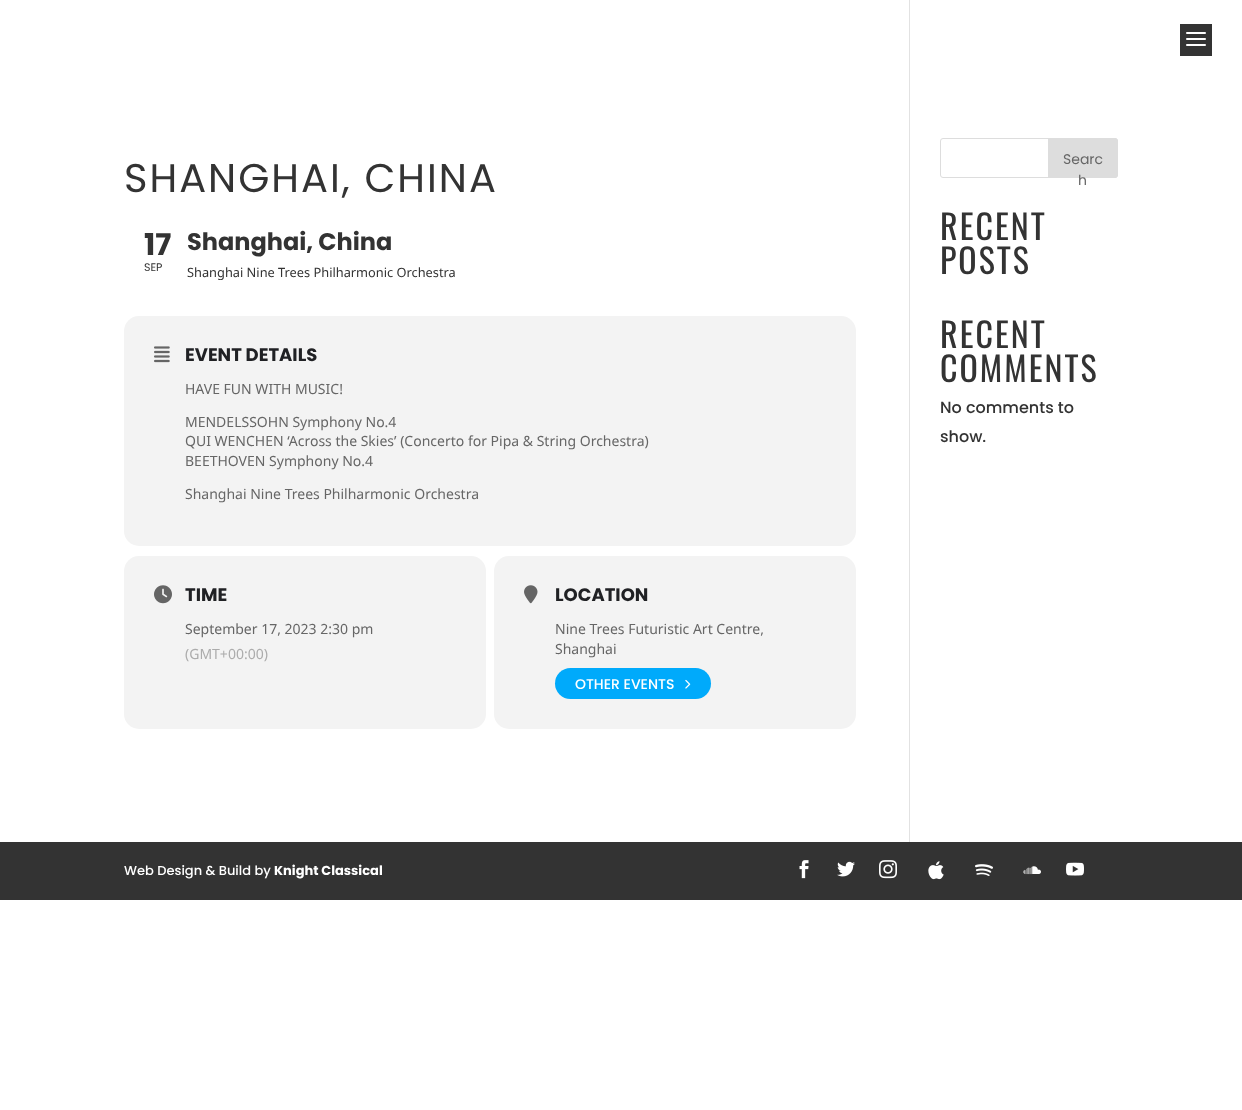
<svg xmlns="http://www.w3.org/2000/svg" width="1242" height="1110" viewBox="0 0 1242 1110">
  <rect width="100%" height="100%" fill="#ffffff"/>
  <rect x="1180" y="24" width="32" height="32" fill="#333333"/>
  <image x="1186" y="32" width="20" height="14" href="img1.png"/>
  <rect x="909" y="0" width="1" height="842" fill="#e2e2e2"/>
  <text x="124" y="192" font-family="Poppins" font-size="40" letter-spacing="2" fill="#333333">SHANGHAI, CHINA</text>
  <text x="144" y="255" font-family="Poppins" font-size="30" font-weight="bold" fill="#333333">17</text>
  <text x="144" y="271" font-family="Poppins" font-size="11" fill="#333333">SEP</text>
  <text x="187" y="250" font-family="Poppins" font-size="24" font-weight="bold" fill="#333333">Shanghai, China</text>
  <text x="187" y="277" font-family="Noto Sans" font-size="12.8" fill="#333333">Shanghai Nine Trees Philharmonic Orchestra</text>
  <rect x="124" y="316" width="732" height="230" rx="15" fill="#f3f3f3"/>
  <image x="154" y="346" width="16" height="17" href="img2.png"/>
  <text x="185" y="361" font-family="Poppins" font-size="18" font-weight="bold" fill="#202124">EVENT DETAILS</text>
  <text x="185" y="394" font-family="Noto Sans" font-size="14" fill="#666666">HAVE FUN WITH MUSIC!</text>
  <text x="185" y="427" font-family="Noto Sans" font-size="14" fill="#666666">MENDELSSOHN Symphony No.4</text>
  <text x="185" y="446" font-family="Noto Sans" font-size="14" fill="#666666">QUI WENCHEN ‘Across the Skies’ (Concerto for Pipa &amp; String Orchestra)</text>
  <text x="185" y="466" font-family="Noto Sans" font-size="14" fill="#666666">BEETHOVEN Symphony No.4</text>
  <text x="185" y="499" font-family="Noto Sans" font-size="14" fill="#666666">Shanghai Nine Trees Philharmonic Orchestra</text>
  <rect x="124" y="556" width="362" height="173" rx="15" fill="#f3f3f3"/>
  <image x="154" y="585" width="18" height="19" href="img3.png"/>
  <text x="185" y="601" font-family="Poppins" font-size="18" font-weight="bold" fill="#202124">TIME</text>
  <text x="185" y="634" font-family="Noto Sans" font-size="14" fill="#666666">September 17, 2023 2:30 pm</text>
  <text x="185" y="659" font-family="Noto Sans" font-size="14" fill="#acacac">(GMT+00:00)</text>
  <rect x="494" y="556" width="362" height="173" rx="15" fill="#f3f3f3"/>
  <image x="524" y="585" width="14" height="19" href="img4.png"/>
  <text x="555" y="601" font-family="Poppins" font-size="18" font-weight="bold" fill="#202124">LOCATION</text>
  <text x="555" y="634" font-family="Noto Sans" font-size="14" fill="#666666">Nine Trees Futuristic Art Centre,</text>
  <text x="555" y="654" font-family="Noto Sans" font-size="14" fill="#666666">Shanghai</text>
  <rect x="555" y="668" width="156" height="31" rx="15.5" fill="#00aafb"/>
  <text x="575" y="689" font-family="Poppins" font-size="14" font-weight="500" fill="#ffffff">OTHER EVENTS</text>
  <image x="685" y="679" width="6" height="10" href="img5.png"/>
  <rect x="940.5" y="138.5" width="177" height="39" rx="2.5" fill="none" stroke="#dddddd"/>
  <path d="M1048.5 138.5H1115C1116.5 138.5 1117.5 139.5 1117.5 141V175C1117.5 176.5 1116.5 177.5 1115 177.5H1048.5Z" fill="#dddddd" stroke="#dddddd"/>
  <text x="1063" y="164" font-family="Poppins" font-size="14" fill="#666666">Searc</text>
  <text x="1078" y="185" font-family="Poppins" font-size="14" fill="#666666">h</text>
  <text x="940" y="240" font-family="Oswald" font-size="34" letter-spacing="2" fill="#333333">RECENT</text>
  <text x="940" y="274" font-family="Oswald" font-size="34" letter-spacing="2" fill="#333333">POSTS</text>
  <text x="940" y="348" font-family="Oswald" font-size="34" letter-spacing="2" fill="#333333">RECENT</text>
  <text x="940" y="382" font-family="Oswald" font-size="34" letter-spacing="2" fill="#333333">COMMENTS</text>
  <text x="940" y="413" font-family="Poppins" font-size="16" font-weight="500" fill="#333333">No comments to</text>
  <text x="940" y="442" font-family="Poppins" font-size="16" font-weight="500" fill="#333333">show.</text>
  <rect x="0" y="842" width="1242" height="58" fill="#333333"/>
  <text x="124" y="875" font-family="Poppins" font-size="13" font-weight="500" fill="#ffffff">Web Design &amp; Build by</text>
  <text x="274" y="875" font-family="Poppins" font-size="13" font-weight="bold" fill="#ffffff">Knight Classical</text>
  <image x="799" y="860" width="10" height="19" href="img6.png"/>
  <image x="837" y="861" width="18" height="16" href="img7.png"/>
  <image x="879" y="860" width="18" height="19" href="img8.png"/>
  <image x="928" y="861" width="16" height="19" href="img9.png"/>
  <image x="975" y="864" width="18" height="12" href="img10.png"/>
  <image x="1023" y="866" width="18" height="9" href="img11.png"/>
  <image x="1066" y="862" width="18" height="14" href="img12.png"/>
</svg>
